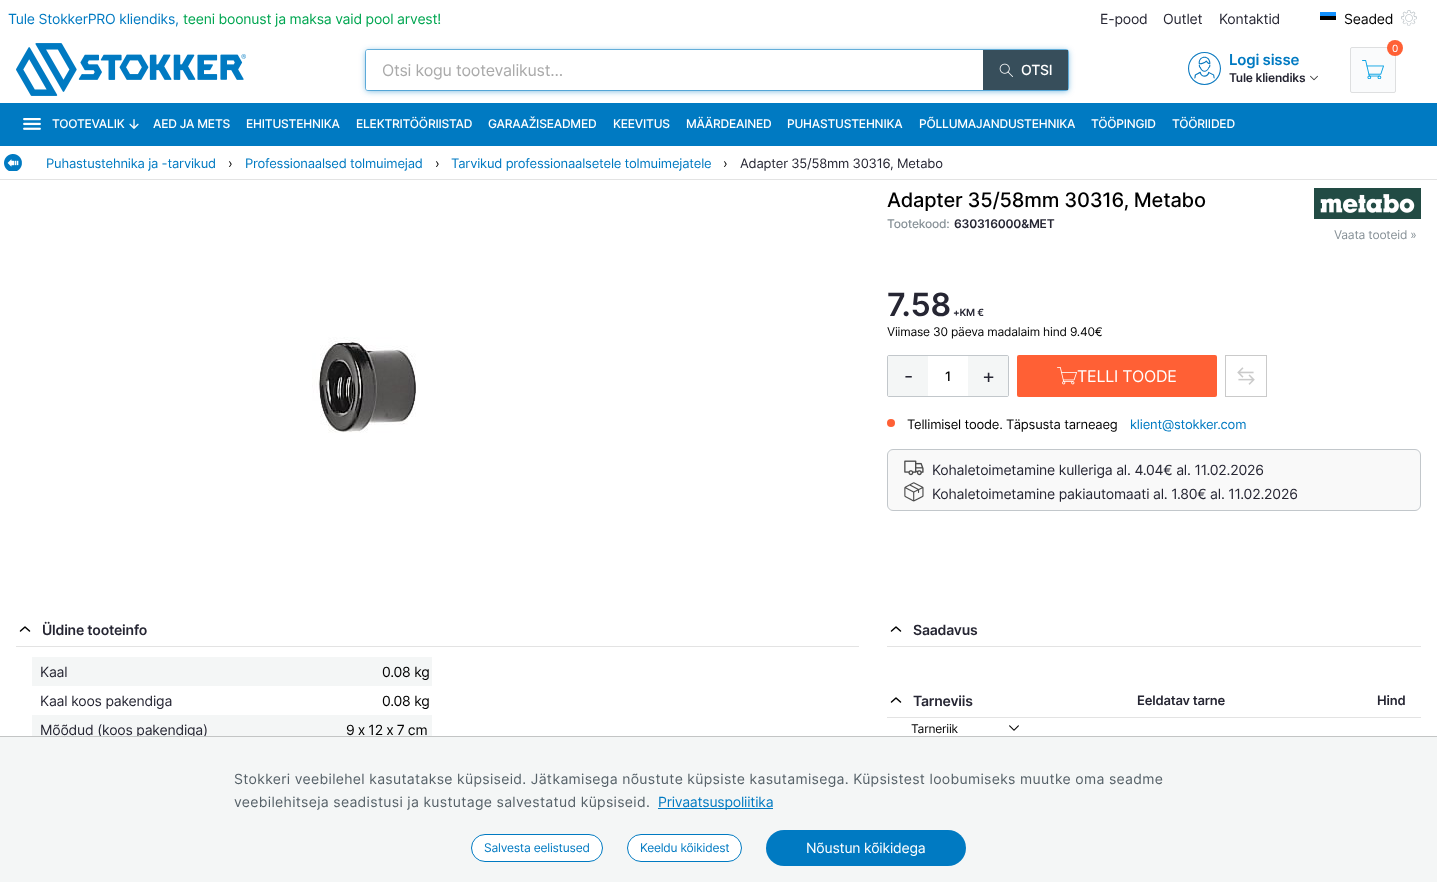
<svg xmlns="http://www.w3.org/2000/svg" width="1437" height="882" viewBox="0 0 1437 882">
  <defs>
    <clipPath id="clip1"><path d="M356 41H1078V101H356ZM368 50H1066C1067 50 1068 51 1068 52V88C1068 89 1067 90 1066 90H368C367 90 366 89 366 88V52C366 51 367 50 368 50Z" clip-rule="evenodd"/></clipPath>
    <filter id="blur1" x="-50%" y="-200%" width="200%" height="500%"><feGaussianBlur stdDeviation="3"/></filter>
  </defs>
  <rect width="100%" height="100%" fill="#ffffff"/>
  <text x="8" y="24" font-family="Inter" font-size="14" letter-spacing="-0.2" fill="#007ac2">Tule StokkerPRO kliendiks,</text>
  <text x="183" y="24" font-family="Inter" font-size="14" letter-spacing="-0.2" fill="#00a651">teeni boonust ja maksa vaid pool arvest!</text>
  <text x="1100" y="24" font-family="Inter" font-size="14" letter-spacing="-0.2" fill="#262633">E-pood</text>
  <text x="1163" y="24" font-family="Inter" font-size="14" letter-spacing="-0.2" fill="#262633">Outlet</text>
  <text x="1219" y="24" font-family="Inter" font-size="14" letter-spacing="-0.2" fill="#262633">Kontaktid</text>
  <rect x="1320" y="16" width="16" height="4" fill="#000000"/>
  <rect x="1320" y="12" width="16" height="4" fill="#1291ff"/>
  <text x="1344" y="24" font-family="Inter" font-size="14" letter-spacing="-0.2" fill="#000000">Seaded</text>
  <image x="1401" y="10" width="16" height="16" href="img1.png"/>
  <image x="16" y="43" width="230" height="53" href="img2.png"/>
  <rect x="365.5" y="49.5" width="703" height="41" rx="2.5" fill="none" stroke="#7abadf"/>
  <g clip-path="url(#clip1)">
    <rect x="366" y="51" width="702" height="40" rx="2" fill="#007ac2" fill-opacity="0.56" filter="url(#blur1)"/>
  </g>
  <rect x="366" y="50" width="612" height="40" rx="2" fill="#ffffff"/>
  <text x="382" y="76" font-family="Inter" font-size="16" letter-spacing="-0.2" fill="#aaaaaa">Otsi kogu tootevalikust...</text>
  <rect x="983" y="50" width="85" height="40" fill="#374e5b"/>
  <image x="999" y="63" width="14" height="14" href="img3.png"/>
  <text x="1021" y="75" font-family="Inter" font-size="14" font-weight="500" letter-spacing="-0.2" fill="#ffffff">OTSI</text>
  <rect x="1350.5" y="47.5" width="45" height="45" rx="1.5" fill="#fafbfc" stroke="#dedfe0"/>
  <circle cx="1395" cy="48" r="8" fill="#ff6035"/>
  <text x="1392" y="52" font-family="Inter" font-size="10" letter-spacing="-0.2" fill="#ffffff">0</text>
  <image x="1362" y="60" width="22" height="19" href="img4.png"/>
  <image x="1188" y="52" width="33" height="33" href="img5.png"/>
  <text x="1229" y="65" font-family="Inter" font-size="15" font-weight="600" letter-spacing="-0.2" fill="#007ac2">Logi sisse</text>
  <text x="1229" y="82" font-family="Inter" font-size="12" font-weight="600" letter-spacing="-0.2" fill="#262633">Tule kliendiks</text>
  <image x="1310" y="75" width="8" height="6" href="img6.png"/>
  <rect x="0" y="103" width="1437" height="43" fill="#007ac2"/>
  <image x="23" y="118" width="18" height="12" href="img7.png"/>
  <text x="52" y="128" font-family="Inter" font-size="12" font-weight="500" letter-spacing="-0.2" fill="#ffffff">TOOTEVALIK</text>
  <image x="129" y="119" width="10" height="10" href="img8.png"/>
  <text x="153" y="128" font-family="Inter" font-size="12" font-weight="500" letter-spacing="-0.2" fill="#ffffff">AED JA METS</text>
  <text x="246" y="128" font-family="Inter" font-size="12" font-weight="500" letter-spacing="-0.2" fill="#ffffff">EHITUSTEHNIKA</text>
  <text x="356" y="128" font-family="Inter" font-size="12" font-weight="500" letter-spacing="-0.2" fill="#ffffff">ELEKTRITÖÖRIISTAD</text>
  <text x="488" y="128" font-family="Inter" font-size="12" font-weight="500" letter-spacing="-0.2" fill="#ffffff">GARAAŽISEADMED</text>
  <text x="613" y="128" font-family="Inter" font-size="12" font-weight="500" letter-spacing="-0.2" fill="#ffffff">KEEVITUS</text>
  <text x="686" y="128" font-family="Inter" font-size="12" font-weight="500" letter-spacing="-0.2" fill="#ffffff">MÄÄRDEAINED</text>
  <text x="787" y="128" font-family="Inter" font-size="12" font-weight="500" letter-spacing="-0.2" fill="#ffffff">PUHASTUSTEHNIKA</text>
  <text x="919" y="128" font-family="Inter" font-size="12" font-weight="500" letter-spacing="-0.2" fill="#ffffff">PÕLLUMAJANDUSTEHNIKA</text>
  <text x="1091" y="128" font-family="Inter" font-size="12" font-weight="500" letter-spacing="-0.2" fill="#ffffff">TÖÖPINGID</text>
  <text x="1172" y="128" font-family="Inter" font-size="12" font-weight="500" letter-spacing="-0.2" fill="#ffffff">TÖÖRIIDED</text>
  <rect x="0" y="179" width="1437" height="1" fill="#e3e3e3"/>
  <image x="4" y="154" width="18" height="17" href="img9.png"/>
  <text x="46" y="168" font-family="Inter" font-size="13" letter-spacing="-0.2" fill="#007ac2">Puhastustehnika ja -tarvikud</text>
  <text x="228" y="168" font-family="Inter" font-size="13" letter-spacing="-0.2" fill="#000000">›</text>
  <text x="245" y="168" font-family="Inter" font-size="13" letter-spacing="-0.2" fill="#007ac2">Professionaalsed tolmuimejad</text>
  <text x="435" y="168" font-family="Inter" font-size="13" letter-spacing="-0.2" fill="#000000">›</text>
  <text x="451" y="168" font-family="Inter" font-size="13" letter-spacing="-0.2" fill="#007ac2">Tarvikud professionaalsetele tolmuimejatele</text>
  <text x="723" y="168" font-family="Inter" font-size="13" letter-spacing="-0.2" fill="#000000">›</text>
  <text x="740" y="168" font-family="Inter" font-size="13" letter-spacing="-0.2" fill="#262633">Adapter 35/58mm 30316, Metabo</text>
  <image x="312" y="337" width="104" height="96" href="img10.png"/>
  <text x="887" y="207" font-family="Inter" font-size="20" font-weight="500" letter-spacing="-0.2" fill="#000000">Adapter 35/58mm 30316, Metabo</text>
  <text x="887" y="228" font-family="Inter" font-size="12" font-weight="500" letter-spacing="-0.2" fill="#879197">Tootekood:</text>
  <text x="954" y="228" font-family="Inter" font-size="12" font-weight="600" letter-spacing="-0.2" fill="#262633">630316000&amp;MET</text>
  <image x="1314" y="188" width="107" height="31" href="img11.png"/>
  <text x="1334" y="239" font-family="Inter" font-size="12" letter-spacing="-0.2" fill="#879197">Vaata tooteid »</text>
  <text x="887" y="316" font-family="Inter" font-size="32" font-weight="600" letter-spacing="-0.2" fill="#262633">7.58</text>
  <text x="953" y="316" font-family="Inter" font-size="10" font-weight="600" letter-spacing="-0.2" fill="#262633">+KM €</text>
  <text x="887" y="336" font-family="Inter" font-size="12" letter-spacing="-0.2" fill="#000000">Viimase 30 päeva madalaim hind 9.40€</text>
  <rect x="887.5" y="355.5" width="121" height="41" rx="1.5" fill="none" stroke="#c2c7cb"/>
  <rect x="888" y="356" width="40" height="40" fill="#f4f6f6"/>
  <text x="904" y="383" font-family="Inter" font-size="20" letter-spacing="-0.2" fill="#262633">-</text>
  <text x="945" y="381" font-family="Inter" font-size="13" font-weight="500" letter-spacing="-0.2" fill="#000000">1</text>
  <rect x="968" y="356" width="40" height="40" fill="#f4f6f6"/>
  <text x="982" y="383" font-family="Inter" font-size="20" letter-spacing="-0.2" fill="#262633">+</text>
  <rect x="1017" y="355" width="200" height="42" rx="2" fill="#ff6035"/>
  <image x="1057" y="367" width="20" height="18" href="img12.png"/>
  <text x="1077" y="382" font-family="Inter" font-size="16" letter-spacing="-0.2" fill="#ffffff">TELLI TOODE</text>
  <rect x="1225.5" y="355.5" width="41" height="41" fill="none" stroke="#cacaca"/>
  <image x="1237" y="367" width="18" height="18" href="img13.png"/>
  <circle cx="891" cy="423" r="4" fill="#ff6035"/>
  <text x="907" y="429" font-family="Inter" font-size="13" letter-spacing="-0.2" fill="#000000">Tellimisel toode. Täpsusta tarneaeg</text>
  <text x="1130" y="429" font-family="Inter" font-size="13" letter-spacing="-0.2" fill="#007ac2">klient@stokker.com</text>
  <rect x="887.5" y="449.5" width="533" height="61" rx="5.5" fill="#f9f9f9" stroke="#c2c7cb"/>
  <image x="904" y="460" width="20" height="16" href="img14.png"/>
  <text x="932" y="475" font-family="Inter" font-size="14" letter-spacing="-0.2" fill="#262633">Kohaletoimetamine kulleriga al. 4.04€ al. 11.02.2026</text>
  <image x="904" y="482" width="20" height="20" href="img15.png"/>
  <text x="932" y="499" font-family="Inter" font-size="14" letter-spacing="-0.2" fill="#262633">Kohaletoimetamine pakiautomaati al. 1.80€ al. 11.02.2026</text>
  <rect x="16" y="646" width="843" height="1" fill="#e3e3e3"/>
  <path d="M29.5 631L25 627L20.5 631" fill="none" stroke="#000000" stroke-width="1.5" stroke-linecap="round" stroke-linejoin="round"/>
  <text x="42" y="635" font-family="Inter" font-size="14" font-weight="600" letter-spacing="-0.2" fill="#262633">Üldine tooteinfo</text>
  <rect x="32" y="657" width="400" height="29" fill="#f4f6f6"/>
  <text x="40" y="677" font-family="Inter" font-size="14" letter-spacing="-0.2" fill="#262633">Kaal</text>
  <text x="382" y="677" font-family="Inter" font-size="14" letter-spacing="-0.2" fill="#000000">0.08 kg</text>
  <text x="40" y="706" font-family="Inter" font-size="14" letter-spacing="-0.2" fill="#262633">Kaal koos pakendiga</text>
  <text x="382" y="706" font-family="Inter" font-size="14" letter-spacing="-0.2" fill="#000000">0.08 kg</text>
  <rect x="32" y="715" width="400" height="21" fill="#f4f6f6"/>
  <text x="40" y="735" font-family="Inter" font-size="14" letter-spacing="-0.2" fill="#262633">Mõõdud (koos pakendiga)</text>
  <text x="346" y="735" word-spacing="-0.5" font-family="Inter" font-size="14" letter-spacing="-0.2" fill="#000000">9 x 12 x 7 cm</text>
  <rect x="887" y="646" width="534" height="1" fill="#e3e3e3"/>
  <path d="M900.5 631L896 627L891.5 631" fill="none" stroke="#000000" stroke-width="1.5" stroke-linecap="round" stroke-linejoin="round"/>
  <text x="913" y="635" font-family="Inter" font-size="14" font-weight="600" letter-spacing="-0.2" fill="#262633">Saadavus</text>
  <rect x="887" y="717" width="534" height="1" fill="#e3e3e3"/>
  <path d="M900.5 702L896 698L891.5 702" fill="none" stroke="#000000" stroke-width="1.5" stroke-linecap="round" stroke-linejoin="round"/>
  <text x="913" y="706" font-family="Inter" font-size="14" font-weight="600" letter-spacing="-0.2" fill="#262633">Tarneviis</text>
  <text x="1137" y="705" font-family="Inter" font-size="13" font-weight="600" letter-spacing="-0.2" fill="#262633">Eeldatav tarne</text>
  <text x="1377" y="705" font-family="Inter" font-size="13" font-weight="600" letter-spacing="-0.2" fill="#262633">Hind</text>
  <text x="911" y="733" font-family="Inter" font-size="12" letter-spacing="-0.2" fill="#000000">Tarneriik</text>
  <image x="1009" y="725" width="10" height="6" href="img16.png"/>
  <rect x="0" y="737" width="1437" height="145" fill="#f4f6f6"/>
  <rect x="0" y="736" width="1437" height="1" fill="#c3c5c5"/>
  <text x="234" y="784" font-family="Inter" font-size="14" letter-spacing="0.32" fill="#566168">Stokkeri veebilehel kasutatakse küpsiseid. Jätkamisega nõustute küpsiste kasutamisega. Küpsistest loobumiseks muutke oma seadme</text>
  <text x="234" y="807" font-family="Inter" font-size="14" letter-spacing="0.32" fill="#566168">veebilehitseja seadistusi ja kustutage salvestatud küpsiseid.</text>
  <rect x="658" y="808" width="115" height="1" fill="#007ac2"/>
  <text x="658" y="807" font-family="Inter" font-size="14" letter-spacing="-0.2" fill="#007ac2">Privaatsuspoliitika</text>
  <rect x="471.5" y="834.5" width="131" height="27" rx="13.5" fill="#ffffff" stroke="#007ac2"/>
  <text x="484" y="852" font-family="Inter" font-size="12" letter-spacing="-0.2" fill="#007ac2">Salvesta eelistused</text>
  <rect x="627.5" y="834.5" width="114" height="27" rx="13.5" fill="#ffffff" stroke="#007ac2"/>
  <text x="640" y="852" font-family="Inter" font-size="12" letter-spacing="-0.2" fill="#007ac2">Keeldu kõikidest</text>
  <rect x="766" y="830" width="200" height="36" rx="18" fill="#007ac2"/>
  <text x="806" y="853" font-family="Inter" font-size="14" letter-spacing="-0.2" fill="#ffffff">Nõustun kõikidega</text>
</svg>
